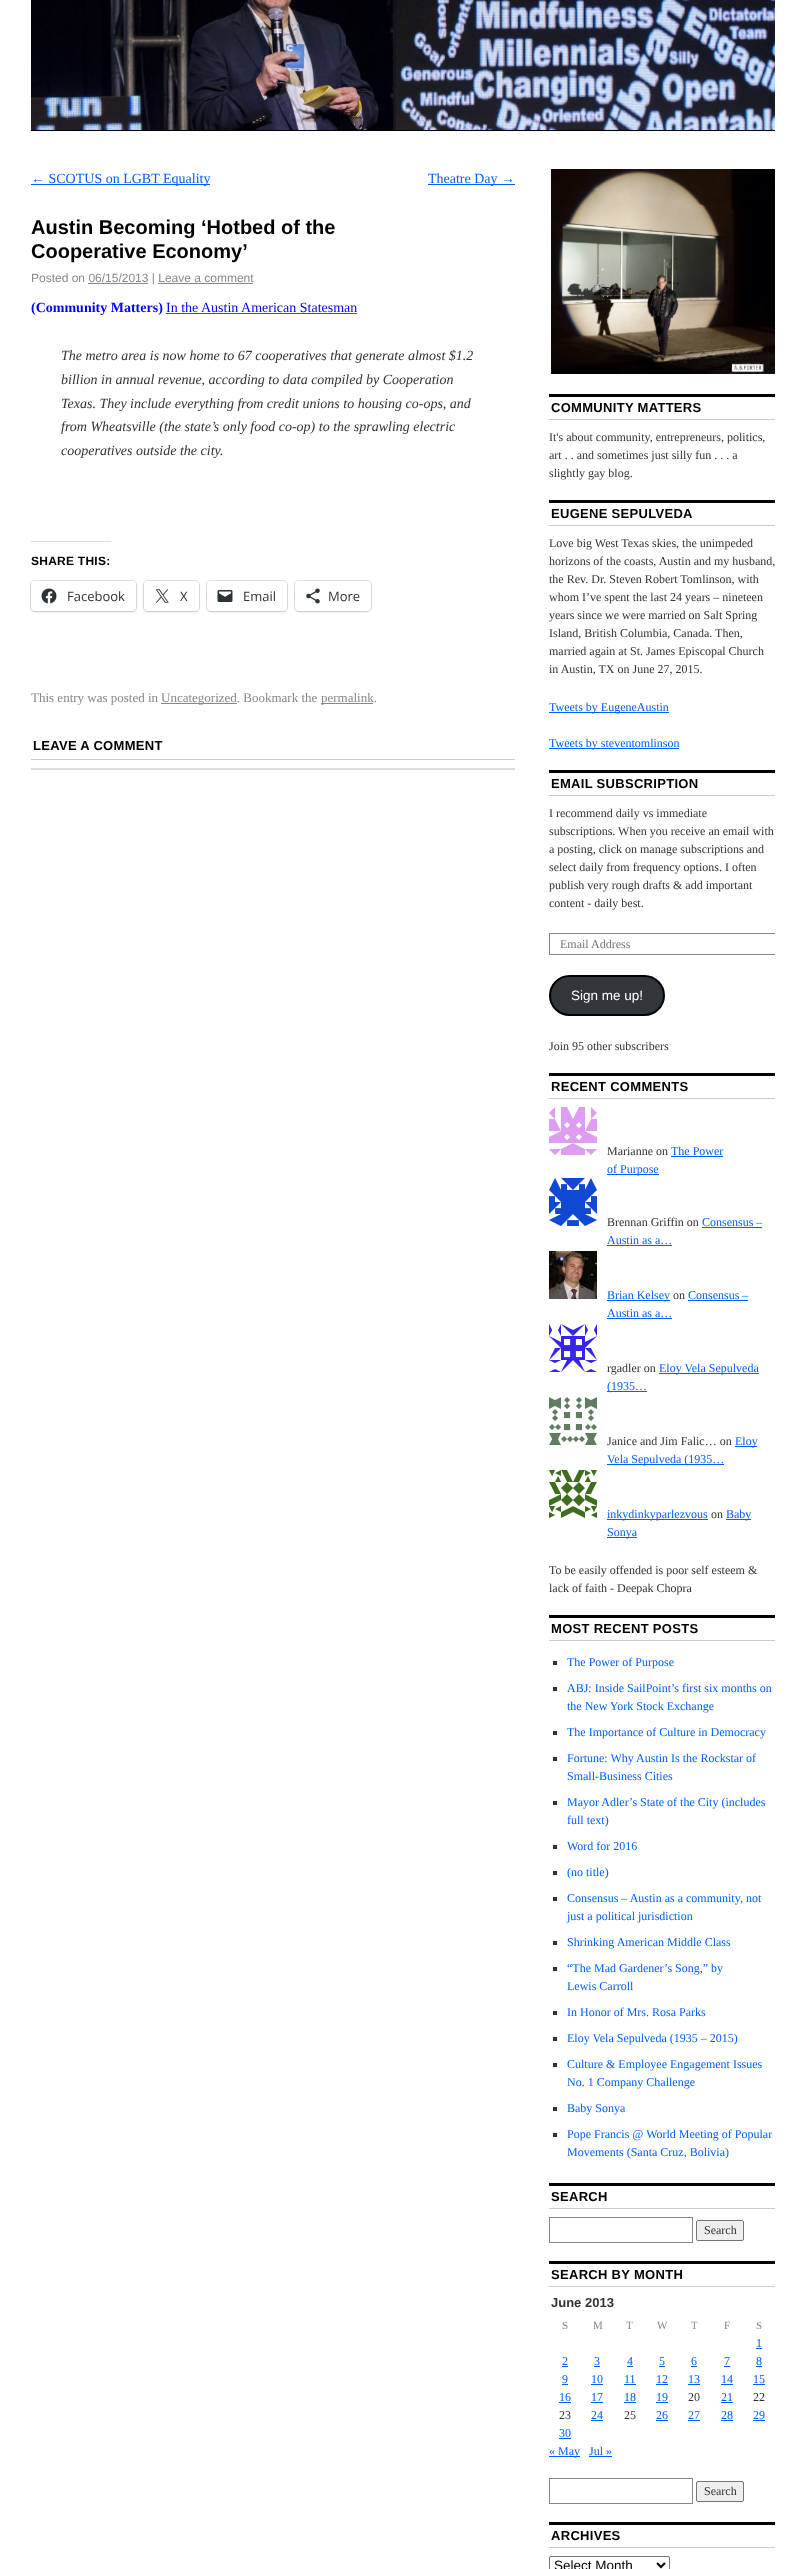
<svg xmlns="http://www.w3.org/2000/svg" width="806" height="2569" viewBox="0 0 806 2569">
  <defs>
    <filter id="blur1" x="-50%" y="-200%" width="200%" height="500%"><feGaussianBlur stdDeviation="1"/></filter>
    <clipPath id="clip1"><rect x="549" y="167" width="226" height="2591"/></clipPath>
  </defs>
  <rect width="100%" height="100%" fill="#ffffff"/>
  <image x="31" y="0" width="744" height="130" href="img1.png"/>
  <rect x="31" y="130" width="744" height="1" fill="#000000"/>
  <rect x="31" y="184" width="179" height="1" fill="#0060ff"/>
  <text x="31" y="183" font-family="Liberation Serif" font-size="14" fill="#0060ff">← SCOTUS on LGBT Equality</text>
  <rect x="428" y="184" width="87" height="1" fill="#0060ff"/>
  <text x="428" y="183" font-family="Liberation Serif" font-size="14" fill="#0060ff">Theatre Day →</text>
  <text x="31" y="234" font-family="Liberation Sans" font-size="20" font-weight="bold" fill="#000000">Austin Becoming ‘Hotbed of the</text>
  <text x="31" y="258" font-family="Liberation Sans" font-size="20" font-weight="bold" fill="#000000">Cooperative Economy’</text>
  <text x="31" y="282" font-family="Liberation Sans" font-size="12" fill="#888888">Posted on 06/15/2013 | Leave a comment</text>
  <rect x="88" y="283" width="60" height="1" fill="#888888"/>
  <rect x="158" y="283" width="95" height="1" fill="#888888"/>
  <text x="31" y="312" font-family="Liberation Serif" font-size="14" font-weight="bold" fill="#0000ff">(Community Matters)</text>
  <text x="166" y="312" font-family="Liberation Serif" font-size="14" fill="#0000ff">In the Austin American Statesman</text>
  <rect x="166" y="313" width="191" height="1" fill="#0060ff"/>
  <text x="61" y="360" font-family="Liberation Serif" font-size="14" font-style="italic" fill="#333333">The metro area is now home to 67 cooperatives that generate almost $1.2</text>
  <text x="61" y="384" font-family="Liberation Serif" font-size="14" font-style="italic" fill="#333333">billion in annual revenue, according to data compiled by Cooperation</text>
  <text x="61" y="408" font-family="Liberation Serif" font-size="14" font-style="italic" fill="#333333">Texas. They include everything from credit unions to housing co-ops, and</text>
  <text x="61" y="431" font-family="Liberation Serif" font-size="14" font-style="italic" fill="#333333">from Wheatsville (the state’s only food co-op) to the sprawling electric</text>
  <text x="61" y="455" font-family="Liberation Serif" font-size="14" font-style="italic" fill="#333333">cooperatives outside the city.</text>
  <rect x="31" y="541" width="80" height="1" fill="#dcdcde"/>
  <text x="31" y="565" font-family="Liberation Sans" font-size="12" font-weight="bold" letter-spacing="0.25" fill="#000000">SHARE THIS:</text>
  <rect x="30.5" y="580.5" width="106" height="31" rx="4.5" fill="none" stroke="#e0e0e0"/>
  <rect x="31" y="582" width="105" height="30" rx="4" fill="#000000" fill-opacity="0.12" filter="url(#blur1)"/>
  <rect x="31" y="581" width="105" height="30" rx="4" fill="#ffffff"/>
  <image x="41" y="588" width="16" height="16" href="img2.png"/>
  <text x="67" y="601" font-family="Open Sans" font-size="13" fill="#2c3338">Facebook</text>
  <rect x="143.5" y="580.5" width="56" height="31" rx="4.5" fill="none" stroke="#e0e0e0"/>
  <rect x="144" y="582" width="55" height="30" rx="4" fill="#000000" fill-opacity="0.12" filter="url(#blur1)"/>
  <rect x="144" y="581" width="55" height="30" rx="4" fill="#ffffff"/>
  <image x="155" y="589" width="14" height="14" href="img3.png"/>
  <text x="180" y="601" font-family="Open Sans" font-size="13" fill="#2c3338">X</text>
  <rect x="206.5" y="580.5" width="81" height="31" rx="4.5" fill="none" stroke="#e0e0e0"/>
  <rect x="207" y="582" width="80" height="30" rx="4" fill="#000000" fill-opacity="0.12" filter="url(#blur1)"/>
  <rect x="207" y="581" width="80" height="30" rx="4" fill="#ffffff"/>
  <image x="217" y="590" width="16" height="12" href="img4.png"/>
  <text x="243" y="601" font-family="Open Sans" font-size="13" fill="#2c3338">Email</text>
  <rect x="294.5" y="580.5" width="77" height="31" rx="4.5" fill="none" stroke="#e0e0e0"/>
  <rect x="295" y="582" width="76" height="30" rx="4" fill="#000000" fill-opacity="0.12" filter="url(#blur1)"/>
  <rect x="295" y="581" width="76" height="30" rx="4" fill="#ffffff"/>
  <image x="306" y="588" width="14" height="16" href="img5.png"/>
  <text x="328" y="601" font-family="Open Sans" font-size="13" fill="#2c3338">More</text>
  <text x="31" y="702" font-family="Liberation Serif" font-size="13" fill="#888888">This entry was posted in</text>
  <rect x="161" y="703" width="76" height="1" fill="#888888"/>
  <text x="161" y="702" font-family="Liberation Serif" font-size="13" fill="#888888">Uncategorized. Bookmark the</text>
  <rect x="321" y="703" width="52" height="1" fill="#888888"/>
  <text x="321" y="702" font-family="Liberation Serif" font-size="13" fill="#888888">permalink.</text>
  <rect x="31" y="759" width="484" height="1" fill="#cccccc"/>
  <text x="33" y="750" font-family="Liberation Sans" font-size="13" font-weight="bold" letter-spacing="0.3" fill="#000000">LEAVE A COMMENT</text>
  <rect x="31" y="768" width="484" height="2" fill="#dcdcde"/>
  <image x="551" y="169" width="224" height="205" href="img6.png"/>
  <rect x="549" y="394" width="226" height="3" fill="#000000"/>
  <rect x="549" y="419" width="226" height="1" fill="#cccccc"/>
  <text x="551" y="412" font-family="Liberation Sans" font-size="13" font-weight="bold" letter-spacing="0.3" fill="#000000">COMMUNITY MATTERS</text>
  <text x="549" y="441" font-family="Liberation Serif" font-size="12" fill="#333333">It's about community, entrepreneurs, politics,</text>
  <text x="549" y="459" font-family="Liberation Serif" font-size="12" fill="#333333">art . . and sometimes just silly fun . . . a</text>
  <text x="549" y="477" font-family="Liberation Serif" font-size="12" fill="#333333">slightly gay blog.</text>
  <rect x="549" y="500" width="226" height="3" fill="#000000"/>
  <rect x="549" y="525" width="226" height="1" fill="#cccccc"/>
  <text x="551" y="518" font-family="Liberation Sans" font-size="13" font-weight="bold" letter-spacing="0.3" fill="#000000">EUGENE SEPULVEDA</text>
  <text x="549" y="547" font-family="Liberation Serif" font-size="12" fill="#333333">Love big West Texas skies, the unimpeded</text>
  <text x="549" y="565" font-family="Liberation Serif" font-size="12" fill="#333333">horizons of the coasts, Austin and my husband,</text>
  <text x="549" y="583" font-family="Liberation Serif" font-size="12" fill="#333333">the Rev. Dr. Steven Robert Tomlinson, with</text>
  <text x="549" y="601" font-family="Liberation Serif" font-size="12" fill="#333333">whom I’ve spent the last 24 years – nineteen</text>
  <text x="549" y="619" font-family="Liberation Serif" font-size="12" fill="#333333">years since we were married on Salt Spring</text>
  <text x="549" y="637" font-family="Liberation Serif" font-size="12" fill="#333333">Island, British Columbia, Canada. Then,</text>
  <text x="549" y="655" font-family="Liberation Serif" font-size="12" fill="#333333">married again at St. James Episcopal Church</text>
  <text x="549" y="673" font-family="Liberation Serif" font-size="12" fill="#333333">in Austin, TX on June 27, 2015.</text>
  <rect x="549" y="712" width="120" height="1" fill="#0060ff"/>
  <text x="549" y="711" font-family="Liberation Serif" font-size="12" fill="#0060ff">Tweets by EugeneAustin</text>
  <rect x="549" y="748" width="130" height="1" fill="#0060ff"/>
  <text x="549" y="747" font-family="Liberation Serif" font-size="12" fill="#0060ff">Tweets by steventomlinson</text>
  <rect x="549" y="770" width="226" height="3" fill="#000000"/>
  <rect x="549" y="795" width="226" height="1" fill="#cccccc"/>
  <text x="551" y="788" font-family="Liberation Sans" font-size="13" font-weight="bold" letter-spacing="0.3" fill="#000000">EMAIL SUBSCRIPTION</text>
  <text x="549" y="817" font-family="Liberation Serif" font-size="12" fill="#333333">I recommend daily vs immediate</text>
  <text x="549" y="835" font-family="Liberation Serif" font-size="12" fill="#333333">subscriptions. When you receive an email with</text>
  <text x="549" y="853" font-family="Liberation Serif" font-size="12" fill="#333333">a posting, click on manage subscriptions and</text>
  <text x="549" y="871" font-family="Liberation Serif" font-size="12" fill="#333333">select daily from frequency options. I often</text>
  <text x="549" y="889" font-family="Liberation Serif" font-size="12" fill="#333333">publish very rough drafts &amp; add important</text>
  <text x="549" y="907" font-family="Liberation Serif" font-size="12" fill="#333333">content - daily best.</text>
  <g clip-path="url(#clip1)">
    <rect x="549.5" y="933.5" width="236" height="21" fill="none" stroke="#888888"/>
  </g>
  <text x="560" y="948" font-family="Liberation Serif" font-size="12" fill="#757575">Email Address</text>
  <rect x="550" y="976" width="114" height="39" rx="19.5" fill="#32373c" stroke="#000000" stroke-width="2"/>
  <text x="571" y="1000" font-family="Liberation Sans" font-size="13.5" fill="#ffffff">Sign me up!</text>
  <text x="549" y="1050" font-family="Liberation Serif" font-size="12" fill="#333333">Join 95 other subscribers</text>
  <rect x="549" y="1073" width="226" height="3" fill="#000000"/>
  <rect x="549" y="1098" width="226" height="1" fill="#cccccc"/>
  <text x="551" y="1091" font-family="Liberation Sans" font-size="13" font-weight="bold" letter-spacing="0.3" fill="#000000">RECENT COMMENTS</text>
  <image x="549" y="1107" width="48" height="48" href="img7.png"/>
  <text x="607" y="1155" font-family="Liberation Serif" font-size="12" fill="#333333">Marianne on</text>
  <text x="671" y="1155" font-family="Liberation Serif" font-size="12" fill="#0060ff">The Power</text>
  <rect x="671" y="1156" width="52" height="1" fill="#0060ff"/>
  <rect x="607" y="1174" width="52" height="1" fill="#0060ff"/>
  <text x="607" y="1173" font-family="Liberation Serif" font-size="12" fill="#0060ff">of Purpose</text>
  <image x="549" y="1178" width="48" height="48" href="img8.png"/>
  <text x="607" y="1226" font-family="Liberation Serif" font-size="12" fill="#333333">Brennan Griffin on</text>
  <text x="702" y="1226" font-family="Liberation Serif" font-size="12" fill="#0060ff">Consensus –</text>
  <rect x="702" y="1227" width="60" height="1" fill="#0060ff"/>
  <text x="607" y="1244" font-family="Liberation Serif" font-size="12" fill="#0060ff">Austin as a…</text>
  <rect x="607" y="1245" width="65" height="1" fill="#0060ff"/>
  <image x="549" y="1251" width="48" height="48" href="img9.png"/>
  <rect x="607" y="1300" width="63" height="1" fill="#0060ff"/>
  <text x="607" y="1299" font-family="Liberation Serif" font-size="12" fill="#0060ff">Brian Kelsey</text>
  <text x="673" y="1299" font-family="Liberation Serif" font-size="12" fill="#333333">on</text>
  <text x="688" y="1299" font-family="Liberation Serif" font-size="12" fill="#0060ff">Consensus –</text>
  <rect x="688" y="1300" width="60" height="1" fill="#0060ff"/>
  <text x="607" y="1317" font-family="Liberation Serif" font-size="12" fill="#0060ff">Austin as a…</text>
  <rect x="607" y="1318" width="65" height="1" fill="#0060ff"/>
  <image x="549" y="1324" width="48" height="48" href="img10.png"/>
  <text x="607" y="1372" font-family="Liberation Serif" font-size="12" fill="#333333">rgadler on</text>
  <rect x="659" y="1373" width="100" height="1" fill="#0060ff"/>
  <text x="659" y="1372" font-family="Liberation Serif" font-size="12" fill="#0060ff">Eloy Vela Sepulveda</text>
  <rect x="607" y="1391" width="40" height="1" fill="#0060ff"/>
  <text x="607" y="1390" font-family="Liberation Serif" font-size="12" fill="#0060ff">(1935…</text>
  <image x="549" y="1397" width="48" height="48" href="img11.png"/>
  <text x="607" y="1445" font-family="Liberation Serif" font-size="12" fill="#333333">Janice and Jim Falic… on</text>
  <rect x="735" y="1446" width="22" height="1" fill="#0060ff"/>
  <text x="735" y="1445" font-family="Liberation Serif" font-size="12" fill="#0060ff">Eloy</text>
  <rect x="607" y="1464" width="117" height="1" fill="#0060ff"/>
  <text x="607" y="1463" font-family="Liberation Serif" font-size="12" fill="#0060ff">Vela Sepulveda (1935…</text>
  <image x="549" y="1470" width="48" height="48" href="img12.png"/>
  <rect x="607" y="1519" width="101" height="1" fill="#0060ff"/>
  <text x="607" y="1518" font-family="Liberation Serif" font-size="12" fill="#0060ff">inkydinkyparlezvous</text>
  <text x="711" y="1518" font-family="Liberation Serif" font-size="12" fill="#333333">on</text>
  <rect x="726" y="1519" width="25" height="1" fill="#0060ff"/>
  <text x="726" y="1518" font-family="Liberation Serif" font-size="12" fill="#0060ff">Baby</text>
  <rect x="607" y="1537" width="30" height="1" fill="#0060ff"/>
  <text x="607" y="1536" font-family="Liberation Serif" font-size="12" fill="#0060ff">Sonya</text>
  <text x="549" y="1574" font-family="Liberation Serif" font-size="12" fill="#333333">To be easily offended is poor self esteem &amp;</text>
  <text x="549" y="1592" font-family="Liberation Serif" font-size="12" fill="#333333">lack of faith - Deepak Chopra</text>
  <rect x="549" y="1615" width="226" height="3" fill="#000000"/>
  <rect x="549" y="1640" width="226" height="1" fill="#cccccc"/>
  <text x="551" y="1633" font-family="Liberation Sans" font-size="13" font-weight="bold" letter-spacing="0.3" fill="#000000">MOST RECENT POSTS</text>
  <rect x="553" y="1661" width="4" height="4" fill="#333333"/>
  <text x="567" y="1666" font-family="Liberation Serif" font-size="12" fill="#0060ff">The Power of Purpose</text>
  <rect x="553" y="1687" width="4" height="4" fill="#333333"/>
  <text x="567" y="1692" font-family="Liberation Serif" font-size="12" fill="#0060ff">ABJ: Inside SailPoint’s first six months on</text>
  <text x="567" y="1710" font-family="Liberation Serif" font-size="12" fill="#0060ff">the New York Stock Exchange</text>
  <rect x="553" y="1731" width="4" height="4" fill="#333333"/>
  <text x="567" y="1736" font-family="Liberation Serif" font-size="12" fill="#0060ff">The Importance of Culture in Democracy</text>
  <rect x="553" y="1757" width="4" height="4" fill="#333333"/>
  <text x="567" y="1762" font-family="Liberation Serif" font-size="12" fill="#0060ff">Fortune: Why Austin Is the Rockstar of</text>
  <text x="567" y="1780" font-family="Liberation Serif" font-size="12" fill="#0060ff">Small-Business Cities</text>
  <rect x="553" y="1801" width="4" height="4" fill="#333333"/>
  <text x="567" y="1806" font-family="Liberation Serif" font-size="12" fill="#0060ff">Mayor Adler’s State of the City (includes</text>
  <text x="567" y="1824" font-family="Liberation Serif" font-size="12" fill="#0060ff">full text)</text>
  <rect x="553" y="1845" width="4" height="4" fill="#333333"/>
  <text x="567" y="1850" font-family="Liberation Serif" font-size="12" fill="#0060ff">Word for 2016</text>
  <rect x="553" y="1871" width="4" height="4" fill="#333333"/>
  <text x="567" y="1876" font-family="Liberation Serif" font-size="12" fill="#0060ff">(no title)</text>
  <rect x="553" y="1897" width="4" height="4" fill="#333333"/>
  <text x="567" y="1902" font-family="Liberation Serif" font-size="12" fill="#0060ff">Consensus – Austin as a community, not</text>
  <text x="567" y="1920" font-family="Liberation Serif" font-size="12" fill="#0060ff">just a political jurisdiction</text>
  <rect x="553" y="1941" width="4" height="4" fill="#333333"/>
  <text x="567" y="1946" font-family="Liberation Serif" font-size="12" fill="#0060ff">Shrinking American Middle Class</text>
  <rect x="553" y="1967" width="4" height="4" fill="#333333"/>
  <text x="567" y="1972" font-family="Liberation Serif" font-size="12" fill="#0060ff">“The Mad Gardener’s Song,” by</text>
  <text x="567" y="1990" font-family="Liberation Serif" font-size="12" fill="#0060ff">Lewis Carroll</text>
  <rect x="553" y="2011" width="4" height="4" fill="#333333"/>
  <text x="567" y="2016" font-family="Liberation Serif" font-size="12" fill="#0060ff">In Honor of Mrs. Rosa Parks</text>
  <rect x="553" y="2037" width="4" height="4" fill="#333333"/>
  <text x="567" y="2042" font-family="Liberation Serif" font-size="12" fill="#0060ff">Eloy Vela Sepulveda (1935 – 2015)</text>
  <rect x="553" y="2063" width="4" height="4" fill="#333333"/>
  <text x="567" y="2068" font-family="Liberation Serif" font-size="12" fill="#0060ff">Culture &amp; Employee Engagement Issues</text>
  <text x="567" y="2086" font-family="Liberation Serif" font-size="12" fill="#0060ff">No. 1 Company Challenge</text>
  <rect x="553" y="2107" width="4" height="4" fill="#333333"/>
  <text x="567" y="2112" font-family="Liberation Serif" font-size="12" fill="#0060ff">Baby Sonya</text>
  <rect x="553" y="2133" width="4" height="4" fill="#333333"/>
  <text x="567" y="2138" font-family="Liberation Serif" font-size="12" fill="#0060ff">Pope Francis @ World Meeting of Popular</text>
  <text x="567" y="2156" font-family="Liberation Serif" font-size="12" fill="#0060ff">Movements (Santa Cruz, Bolivia)</text>
  <rect x="549" y="2183" width="226" height="3" fill="#000000"/>
  <rect x="549" y="2208" width="226" height="1" fill="#cccccc"/>
  <text x="551" y="2201" font-family="Liberation Sans" font-size="13" font-weight="bold" letter-spacing="0.3" fill="#000000">SEARCH</text>
  <rect x="549.5" y="2217.5" width="143" height="25" fill="none" stroke="#888888"/>
  <rect x="696.5" y="2220.5" width="47" height="20" rx="1.5" fill="#efefef" stroke="#767676"/>
  <text x="704" y="2234" font-family="Liberation Serif" font-size="12" fill="#333333">Search</text>
  <rect x="549" y="2261" width="226" height="3" fill="#000000"/>
  <rect x="549" y="2286" width="226" height="1" fill="#cccccc"/>
  <text x="551" y="2279" font-family="Liberation Sans" font-size="13" font-weight="bold" letter-spacing="0.3" fill="#000000">SEARCH BY MONTH</text>
  <text x="551" y="2307" font-family="Liberation Sans" font-size="13" font-weight="bold" fill="#333333">June 2013</text>
  <text x="562" y="2329" font-family="Liberation Serif" font-size="11" fill="#888888">S</text>
  <text x="593" y="2329" font-family="Liberation Serif" font-size="11" fill="#888888">M</text>
  <text x="626" y="2329" font-family="Liberation Serif" font-size="11" fill="#888888">T</text>
  <text x="657" y="2329" font-family="Liberation Serif" font-size="11" fill="#888888">W</text>
  <text x="691" y="2329" font-family="Liberation Serif" font-size="11" fill="#888888">T</text>
  <text x="724" y="2329" font-family="Liberation Serif" font-size="11" fill="#888888">F</text>
  <text x="756" y="2329" font-family="Liberation Serif" font-size="11" fill="#888888">S</text>
  <text x="756" y="2347" font-family="Liberation Serif" font-size="12" fill="#0060ff">1</text>
  <rect x="756" y="2348" width="6" height="1" fill="#0060ff"/>
  <text x="562" y="2365" font-family="Liberation Serif" font-size="12" fill="#0060ff">2</text>
  <rect x="562" y="2366" width="6" height="1" fill="#0060ff"/>
  <text x="594" y="2365" font-family="Liberation Serif" font-size="12" fill="#0060ff">3</text>
  <rect x="594" y="2366" width="6" height="1" fill="#0060ff"/>
  <text x="627" y="2365" font-family="Liberation Serif" font-size="12" fill="#0060ff">4</text>
  <rect x="627" y="2366" width="6" height="1" fill="#0060ff"/>
  <text x="659" y="2365" font-family="Liberation Serif" font-size="12" fill="#0060ff">5</text>
  <rect x="659" y="2366" width="6" height="1" fill="#0060ff"/>
  <text x="691" y="2365" font-family="Liberation Serif" font-size="12" fill="#0060ff">6</text>
  <rect x="691" y="2366" width="6" height="1" fill="#0060ff"/>
  <text x="724" y="2365" font-family="Liberation Serif" font-size="12" fill="#0060ff">7</text>
  <rect x="724" y="2366" width="6" height="1" fill="#0060ff"/>
  <text x="756" y="2365" font-family="Liberation Serif" font-size="12" fill="#0060ff">8</text>
  <rect x="756" y="2366" width="6" height="1" fill="#0060ff"/>
  <text x="562" y="2383" font-family="Liberation Serif" font-size="12" fill="#0060ff">9</text>
  <rect x="562" y="2384" width="6" height="1" fill="#0060ff"/>
  <text x="591" y="2383" font-family="Liberation Serif" font-size="12" fill="#0060ff">10</text>
  <rect x="591" y="2384" width="12" height="1" fill="#0060ff"/>
  <text x="624" y="2383" font-family="Liberation Serif" font-size="12" fill="#0060ff">11</text>
  <rect x="624" y="2384" width="12" height="1" fill="#0060ff"/>
  <text x="656" y="2383" font-family="Liberation Serif" font-size="12" fill="#0060ff">12</text>
  <rect x="656" y="2384" width="12" height="1" fill="#0060ff"/>
  <text x="688" y="2383" font-family="Liberation Serif" font-size="12" fill="#0060ff">13</text>
  <rect x="688" y="2384" width="12" height="1" fill="#0060ff"/>
  <text x="721" y="2383" font-family="Liberation Serif" font-size="12" fill="#0060ff">14</text>
  <rect x="721" y="2384" width="12" height="1" fill="#0060ff"/>
  <text x="753" y="2383" font-family="Liberation Serif" font-size="12" fill="#0060ff">15</text>
  <rect x="753" y="2384" width="12" height="1" fill="#0060ff"/>
  <text x="559" y="2401" font-family="Liberation Serif" font-size="12" fill="#0060ff">16</text>
  <rect x="559" y="2402" width="12" height="1" fill="#0060ff"/>
  <text x="591" y="2401" font-family="Liberation Serif" font-size="12" fill="#0060ff">17</text>
  <rect x="591" y="2402" width="12" height="1" fill="#0060ff"/>
  <text x="624" y="2401" font-family="Liberation Serif" font-size="12" fill="#0060ff">18</text>
  <rect x="624" y="2402" width="12" height="1" fill="#0060ff"/>
  <text x="656" y="2401" font-family="Liberation Serif" font-size="12" fill="#0060ff">19</text>
  <rect x="656" y="2402" width="12" height="1" fill="#0060ff"/>
  <text x="688" y="2401" font-family="Liberation Serif" font-size="12" fill="#333333">20</text>
  <text x="721" y="2401" font-family="Liberation Serif" font-size="12" fill="#0060ff">21</text>
  <rect x="721" y="2402" width="12" height="1" fill="#0060ff"/>
  <text x="753" y="2401" font-family="Liberation Serif" font-size="12" fill="#333333">22</text>
  <text x="559" y="2419" font-family="Liberation Serif" font-size="12" fill="#333333">23</text>
  <text x="591" y="2419" font-family="Liberation Serif" font-size="12" fill="#0060ff">24</text>
  <rect x="591" y="2420" width="12" height="1" fill="#0060ff"/>
  <text x="624" y="2419" font-family="Liberation Serif" font-size="12" fill="#333333">25</text>
  <text x="656" y="2419" font-family="Liberation Serif" font-size="12" fill="#0060ff">26</text>
  <rect x="656" y="2420" width="12" height="1" fill="#0060ff"/>
  <text x="688" y="2419" font-family="Liberation Serif" font-size="12" fill="#0060ff">27</text>
  <rect x="688" y="2420" width="12" height="1" fill="#0060ff"/>
  <text x="721" y="2419" font-family="Liberation Serif" font-size="12" fill="#0060ff">28</text>
  <rect x="721" y="2420" width="12" height="1" fill="#0060ff"/>
  <text x="753" y="2419" font-family="Liberation Serif" font-size="12" fill="#0060ff">29</text>
  <rect x="753" y="2420" width="12" height="1" fill="#0060ff"/>
  <text x="559" y="2437" font-family="Liberation Serif" font-size="12" fill="#0060ff">30</text>
  <rect x="559" y="2438" width="12" height="1" fill="#0060ff"/>
  <rect x="549" y="2456" width="31" height="1" fill="#0060ff"/>
  <text x="549" y="2455" font-family="Liberation Serif" font-size="12" fill="#0060ff">« May</text>
  <text x="589" y="2455" font-family="Liberation Serif" font-size="12" fill="#0060ff">Jul »</text>
  <rect x="589" y="2456" width="23" height="1" fill="#0060ff"/>
  <rect x="549.5" y="2478.5" width="143" height="25" fill="none" stroke="#888888"/>
  <rect x="696.5" y="2481.5" width="47" height="20" rx="1.5" fill="#efefef" stroke="#767676"/>
  <text x="704" y="2495" font-family="Liberation Serif" font-size="12" fill="#333333">Search</text>
  <rect x="549" y="2522" width="226" height="3" fill="#000000"/>
  <rect x="549" y="2547" width="226" height="1" fill="#cccccc"/>
  <text x="551" y="2540" font-family="Liberation Sans" font-size="13" font-weight="bold" letter-spacing="0.3" fill="#000000">ARCHIVES</text>
  <rect x="549.5" y="2556.5" width="120" height="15" rx="1.5" fill="none" stroke="#767676"/>
  <path d="M657 2563L661 2567L665 2563" fill="none" stroke="#000000" stroke-width="2"/>
  <text x="554" y="2570" font-family="Liberation Sans" font-size="13.5" fill="#000000">Select Month</text>
</svg>
